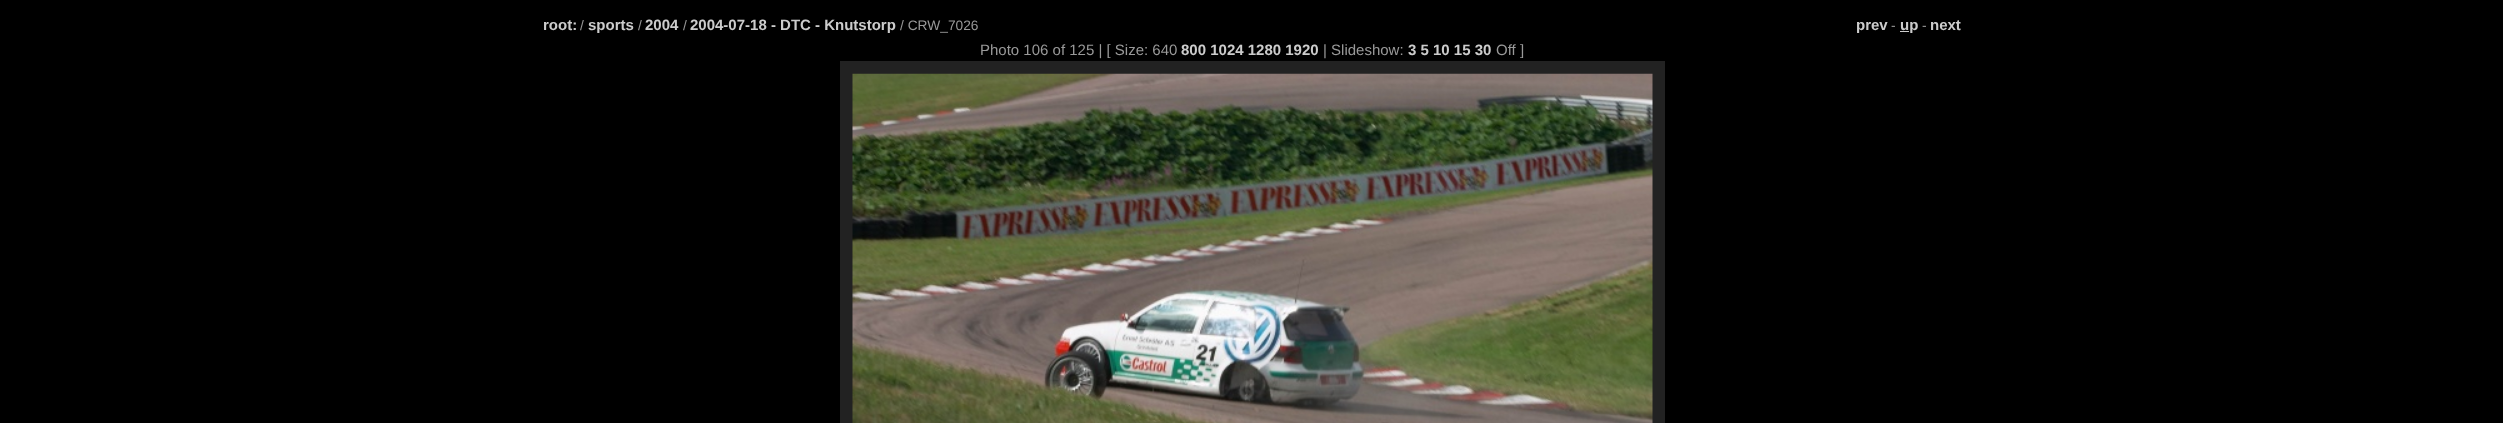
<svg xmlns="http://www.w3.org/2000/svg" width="2503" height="423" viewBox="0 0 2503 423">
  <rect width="100%" height="100%" fill="#000000"/>
  <text x="543" y="30" font-family="Liberation Sans" font-size="15" font-weight="bold" fill="#cccccc">root:</text>
  <text x="580" y="30" font-family="Liberation Sans" font-size="13.75" fill="#999999">/</text>
  <text x="588" y="30" font-family="Liberation Sans" font-size="15" font-weight="bold" fill="#cccccc">sports</text>
  <text x="638" y="30" font-family="Liberation Sans" font-size="13.75" fill="#999999">/</text>
  <text x="645" y="30" font-family="Liberation Sans" font-size="15" font-weight="bold" fill="#cccccc">2004</text>
  <text x="683" y="30" font-family="Liberation Sans" font-size="13.75" fill="#999999">/</text>
  <text x="690" y="30" font-family="Liberation Sans" font-size="15" font-weight="bold" fill="#cccccc">2004-07-18 - DTC - Knutstorp</text>
  <text x="900" y="30" font-family="Liberation Sans" font-size="13.75" fill="#999999">/ CRW_7026</text>
  <text x="1856" y="30" font-family="Liberation Sans" font-size="15" font-weight="bold" fill="#cccccc">prev</text>
  <text x="1891" y="30" font-family="Liberation Sans" font-size="13.75" fill="#999999">-</text>
  <rect x="1900" y="31" width="9" height="1" fill="#cccccc"/>
  <text x="1900" y="30" font-family="Liberation Sans" font-size="15" font-weight="bold" fill="#cccccc">up</text>
  <text x="1922" y="30" font-family="Liberation Sans" font-size="13.75" fill="#999999">-</text>
  <text x="1930" y="30" font-family="Liberation Sans" font-size="15" font-weight="bold" fill="#cccccc">next</text>
  <text x="980" y="55" font-family="Liberation Sans" font-size="15" fill="#999999">Photo 106 of 125 | [ Size: 640</text>
  <text x="1181" y="55" font-family="Liberation Sans" font-size="15" font-weight="bold" fill="#cccccc">800 1024 1280 1920</text>
  <text x="1323" y="55" font-family="Liberation Sans" font-size="15" fill="#999999">| Slideshow:</text>
  <text x="1408" y="55" font-family="Liberation Sans" font-size="15" font-weight="bold" fill="#cccccc">3 5 10 15 30</text>
  <text x="1496" y="55" font-family="Liberation Sans" font-size="15" fill="#999999">Off ]</text>
  <rect x="846.5" y="67.5" width="812" height="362" fill="none" stroke="#222222" stroke-width="13"/>
  <image x="852" y="73" width="801" height="350" href="img1.png"/>
</svg>
